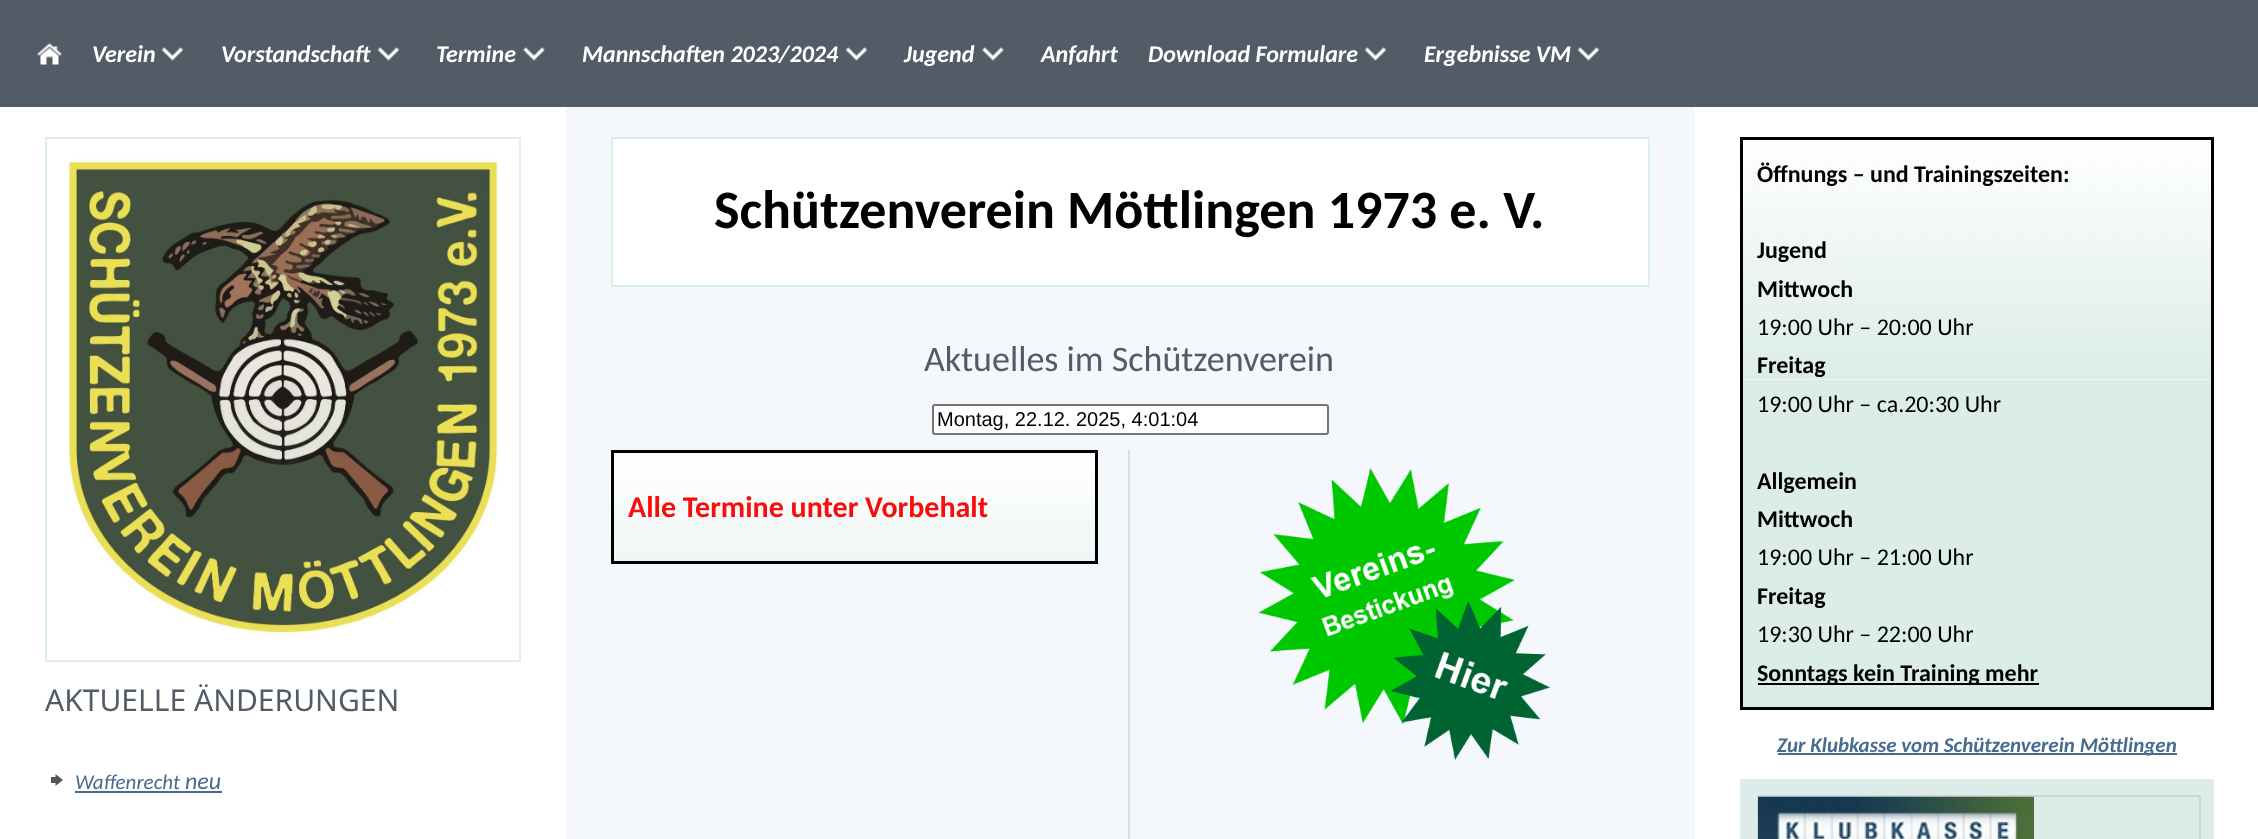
<svg xmlns="http://www.w3.org/2000/svg" width="2258" height="839" viewBox="0 0 2258 839">
  <rect width="100%" height="100%" fill="#f4f7fc"/>
  <rect x="0" y="0" width="2258" height="107" fill="#525c67"/>
  <image x="37" y="43" width="25" height="22" href="img1.png"/>
  <image x="161" y="47" width="23" height="14" href="img2.png"/>
  <text x="92" y="62" font-family="Carlito" font-size="24" font-weight="bold" font-style="italic" fill="#ffffff">Verein</text>
  <image x="377" y="47" width="23" height="14" href="img2.png"/>
  <text x="221" y="62" font-family="Carlito" font-size="24" font-weight="bold" font-style="italic" fill="#ffffff">Vorstandschaft</text>
  <image x="523" y="47" width="22" height="14" href="img3.png"/>
  <text x="436" y="62" font-family="Carlito" font-size="24" font-weight="bold" font-style="italic" fill="#ffffff">Termine</text>
  <image x="845" y="47" width="23" height="14" href="img2.png"/>
  <text x="582" y="62" font-family="Carlito" font-size="24" font-weight="bold" font-style="italic" fill="#ffffff">Mannschaften 2023/2024</text>
  <image x="982" y="47" width="22" height="14" href="img4.png"/>
  <text x="904" y="62" font-family="Carlito" font-size="24" font-weight="bold" font-style="italic" fill="#ffffff">Jugend</text>
  <text x="1041" y="62" font-family="Carlito" font-size="24" font-weight="bold" font-style="italic" fill="#ffffff">Anfahrt</text>
  <image x="1364" y="47" width="23" height="14" href="img2.png"/>
  <text x="1148" y="62" font-family="Carlito" font-size="24" font-weight="bold" font-style="italic" fill="#ffffff">Download Formulare</text>
  <image x="1577" y="47" width="23" height="14" href="img2.png"/>
  <text x="1424" y="62" font-family="Carlito" font-size="24" font-weight="bold" font-style="italic" fill="#ffffff">Ergebnisse VM</text>
  <rect x="612" y="138" width="1037" height="148" fill="#ffffff" stroke="#dbefeb" stroke-width="2"/>
  <text x="714" y="228" font-family="Carlito" font-size="54" font-weight="bold" fill="#000000">Schützenverein Möttlingen 1973 e. V.</text>
  <text x="924" y="371" font-family="Carlito" font-size="36" fill="#525c67">Aktuelles im Schützenverein</text>
  <rect x="933" y="405" width="395" height="29" rx="2" fill="#ffffff" stroke="#767676" stroke-width="2"/>
  <text x="937" y="426" font-family="Liberation Sans" font-size="20" fill="#000000">Montag, 22.12. 2025, 4:01:04</text>
  <rect x="1128" y="450" width="2" height="389" fill="#dddcdc"/>
  <image x="610" y="453" width="485" height="111" href="img5.png"/>
  <rect x="612.5" y="451.5" width="484" height="111" fill="none" stroke="#000000" stroke-width="3"/>
  <text x="628" y="517" font-family="Carlito" font-size="30" font-weight="bold" fill="#f90c0c">Alle Termine unter Vorbehalt</text>
  <image x="1258" y="468" width="293" height="292" href="img6.png"/>
  <rect x="1695" y="107" width="563" height="732" fill="#ffffff"/>
  <rect x="1743" y="379" width="468" height="328" fill="#dcece9"/>
  <image x="1743" y="140" width="468" height="240" href="img7.png"/>
  <rect x="1741.5" y="138.5" width="471" height="570" fill="none" stroke="#000000" stroke-width="3"/>
  <text x="1757" y="182" font-family="Carlito" font-size="24" font-weight="bold" fill="#000000">Öffnungs – und Trainingszeiten:</text>
  <text x="1757" y="258" font-family="Carlito" font-size="24" font-weight="bold" fill="#000000">Jugend</text>
  <text x="1757" y="297" font-family="Carlito" font-size="24" font-weight="bold" fill="#000000">Mittwoch</text>
  <text x="1757" y="335" font-family="Carlito" font-size="24" fill="#000000">19:00 Uhr – 20:00 Uhr</text>
  <text x="1757" y="373" font-family="Carlito" font-size="24" font-weight="bold" fill="#000000">Freitag</text>
  <text x="1757" y="412" font-family="Carlito" font-size="24" fill="#000000">19:00 Uhr – ca.20:30 Uhr</text>
  <text x="1757" y="489" font-family="Carlito" font-size="24" font-weight="bold" fill="#000000">Allgemein</text>
  <text x="1757" y="527" font-family="Carlito" font-size="24" font-weight="bold" fill="#000000">Mittwoch</text>
  <text x="1757" y="565" font-family="Carlito" font-size="24" fill="#000000">19:00 Uhr – 21:00 Uhr</text>
  <text x="1757" y="604" font-family="Carlito" font-size="24" font-weight="bold" fill="#000000">Freitag</text>
  <text x="1757" y="642" font-family="Carlito" font-size="24" fill="#000000">19:30 Uhr – 22:00 Uhr</text>
  <rect x="1758" y="683" width="281" height="2" fill="#000000"/>
  <text x="1757" y="681" font-family="Carlito" font-size="24" font-weight="bold" fill="#000000">Sonntags kein Training mehr</text>
  <rect x="1778" y="753" width="399" height="2" fill="#486b8e"/>
  <text x="1777" y="752" font-family="Carlito" font-size="21" font-weight="bold" font-style="italic" fill="#486b8e">Zur Klubkasse vom Schützenverein Möttlingen</text>
  <rect x="1741" y="780" width="472" height="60" fill="#dcece9" stroke="#e0ebea" stroke-width="2"/>
  <rect x="1758" y="796" width="442" height="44" fill="none" stroke="#d3d3d3" stroke-width="2"/>
  <image x="1758" y="796" width="276" height="43" href="img8.png"/>
  <rect x="0" y="107" width="566" height="732" fill="#ffffff"/>
  <rect x="46" y="138" width="474" height="523" fill="none" stroke="#dbefeb" stroke-width="2"/>
  <image x="68" y="159" width="430" height="477" href="img9.png"/>
  <text x="45" y="711" font-family="Noto Sans" font-size="30" fill="#525c67">AKTUELLE ÄNDERUNGEN</text>
  <image x="51" y="774" width="12" height="12" href="img10.png"/>
  <text x="75" y="789" font-family="Carlito" font-size="21" font-style="italic" fill="#486b8e">Waffenrecht</text>
  <text x="185" y="789" font-family="Carlito" font-size="24" font-style="italic" fill="#486b8e">neu</text>
  <rect x="75" y="791" width="147" height="2" fill="#486b8e"/>
</svg>
